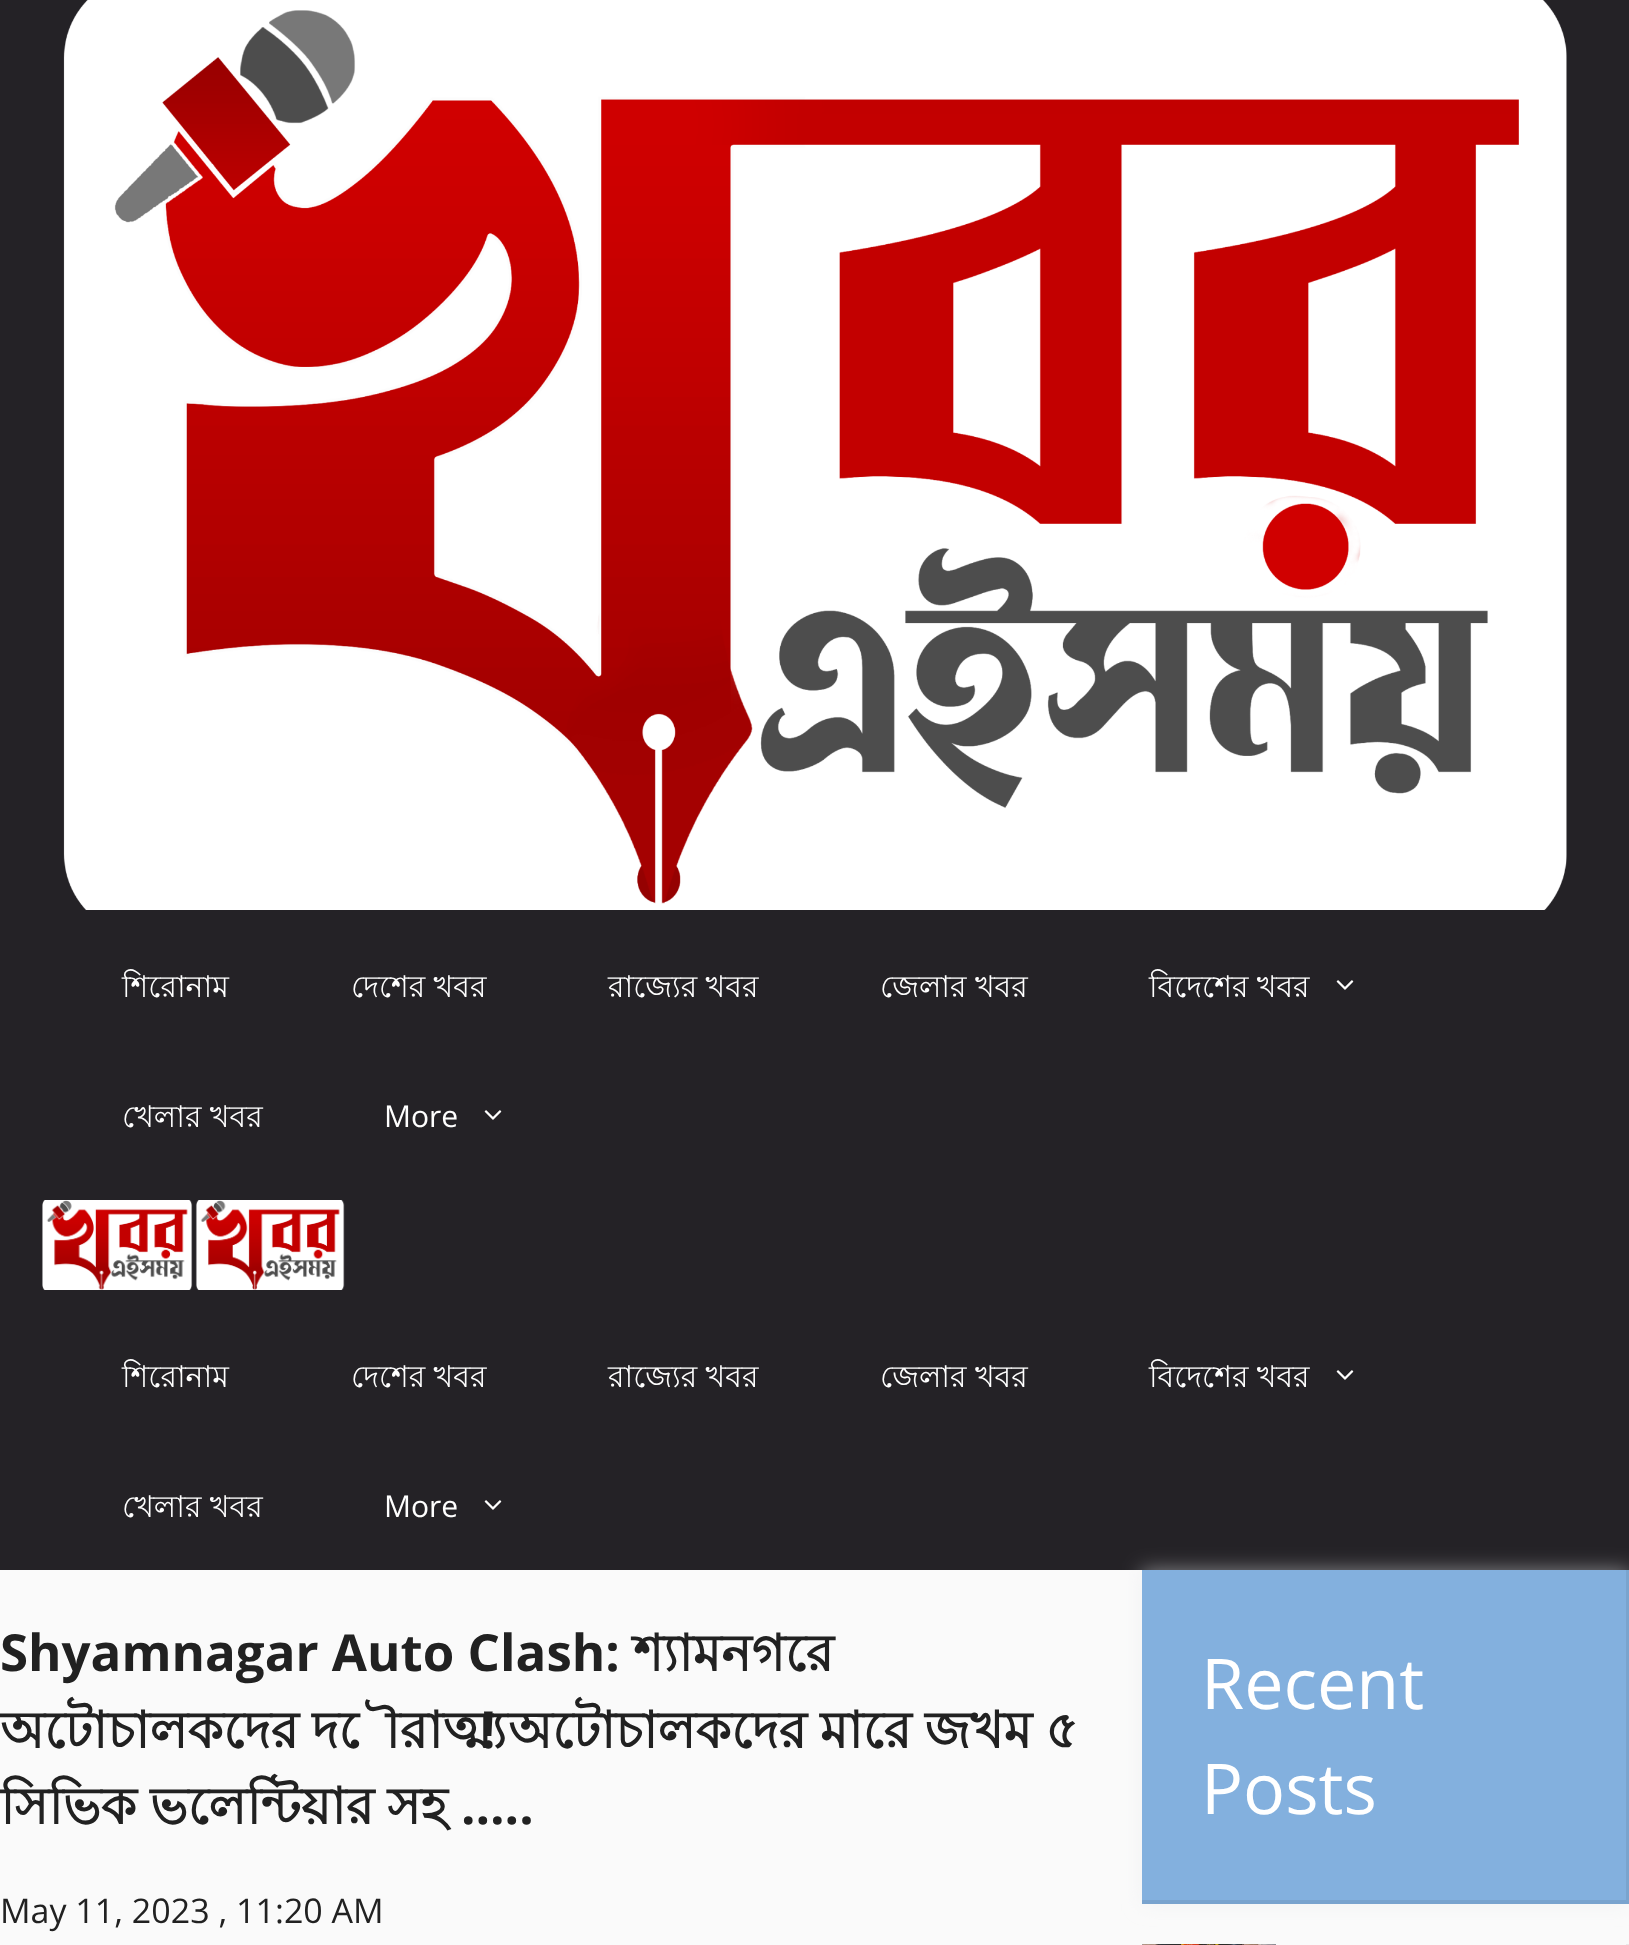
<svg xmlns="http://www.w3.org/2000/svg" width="1629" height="1945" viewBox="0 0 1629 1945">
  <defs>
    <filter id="blur1" x="-50%" y="-200%" width="200%" height="500%"><feGaussianBlur stdDeviation="10"/></filter>
  </defs>
  <rect width="100%" height="100%" fill="#fafafa"/>
  <rect x="0" y="0" width="1629" height="1570" fill="#242226"/>
  <image x="63" y="0" width="1504" height="910" href="img1.png"/>
  <text x="122" y="997" font-family="Lohit Bengali" font-size="30" fill="#ffffff">শিরোনাম</text>
  <text x="351" y="997" font-family="Lohit Bengali" font-size="30" fill="#ffffff">দেশের খবর</text>
  <text x="608" y="997" font-family="Lohit Bengali" font-size="30" fill="#ffffff">রাজ্যের খবর</text>
  <text x="880" y="997" font-family="Lohit Bengali" font-size="30" fill="#ffffff">জেলার খবর</text>
  <text x="1149" y="997" font-family="Lohit Bengali" font-size="30" fill="#ffffff">বিদেশের খবর</text>
  <image x="1336" y="980" width="18" height="10" href="img2.png"/>
  <text x="122" y="1127" font-family="Lohit Bengali" font-size="30" fill="#ffffff">খেলার খবর</text>
  <text x="384" y="1127" font-family="Open Sans" font-size="30" fill="#ffffff">More</text>
  <image x="484" y="1110" width="18" height="10" href="img2.png"/>
  <image x="42" y="1200" width="151" height="90" href="img3.png"/>
  <image x="195" y="1200" width="150" height="90" href="img4.png"/>
  <text x="122" y="1387" font-family="Lohit Bengali" font-size="30" fill="#ffffff">শিরোনাম</text>
  <text x="351" y="1387" font-family="Lohit Bengali" font-size="30" fill="#ffffff">দেশের খবর</text>
  <text x="608" y="1387" font-family="Lohit Bengali" font-size="30" fill="#ffffff">রাজ্যের খবর</text>
  <text x="880" y="1387" font-family="Lohit Bengali" font-size="30" fill="#ffffff">জেলার খবর</text>
  <text x="1149" y="1387" font-family="Lohit Bengali" font-size="30" fill="#ffffff">বিদেশের খবর</text>
  <image x="1336" y="1370" width="18" height="10" href="img2.png"/>
  <text x="122" y="1517" font-family="Lohit Bengali" font-size="30" fill="#ffffff">খেলার খবর</text>
  <text x="384" y="1517" font-family="Open Sans" font-size="30" fill="#ffffff">More</text>
  <image x="484" y="1500" width="18" height="10" href="img2.png"/>
  <text x="0" y="1671" font-family="Open Sans" font-size="51" font-weight="bold" fill="#212121">Shyamnagar Auto Clash:</text>
  <text x="633" y="1671" font-family="Lohit Bengali" font-size="51" font-weight="bold" fill="#212121">শ্যামনগরে</text>
  <text x="0" y="1748" word-spacing="-1" font-family="Lohit Bengali" font-size="51" font-weight="bold" fill="#212121">অটোচালকদের দৌরাত্ম্য</text>
  <text x="481" y="1748" font-family="Open Sans" font-size="51" font-weight="bold" fill="#212121">!</text>
  <text x="508" y="1748" word-spacing="-1" font-family="Lohit Bengali" font-size="51" font-weight="bold" fill="#212121">অটোচালকদের মারে জখম ৫</text>
  <text x="0" y="1824" word-spacing="-1" font-family="Lohit Bengali" font-size="51" font-weight="bold" fill="#212121">সিভিক ভলেন্টিয়ার সহ</text>
  <text x="461" y="1824" font-family="Open Sans" font-size="51" font-weight="bold" fill="#212121">…..</text>
  <text x="0" y="1923" font-family="Open Sans" font-size="34" fill="#212121">May 11, 2023 , 11:20 AM</text>
  <rect x="1142" y="1570" width="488" height="334" fill="#e8eaed" fill-opacity="0.5" filter="url(#blur1)"/>
  <rect x="1142" y="1570" width="487" height="334" fill="#83b0de"/>
  <path d="M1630 1570V1904L1626 1900V1570Z" fill="#7aa4ce"/>
  <path d="M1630 1904H1142V1900H1626Z" fill="#000000" fill-opacity="0.07"/>
  <text x="1201" y="1709" font-family="Open Sans" font-size="70" fill="#ffffff">Recent</text>
  <text x="1201" y="1814" font-family="Open Sans" font-size="70" fill="#ffffff">Posts</text>
  <path d="M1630 1944V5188L1626 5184V1944Z" fill="#e9e9e9"/>
  <image x="1142" y="1944" width="134" height="1" href="img5.png"/>
</svg>
